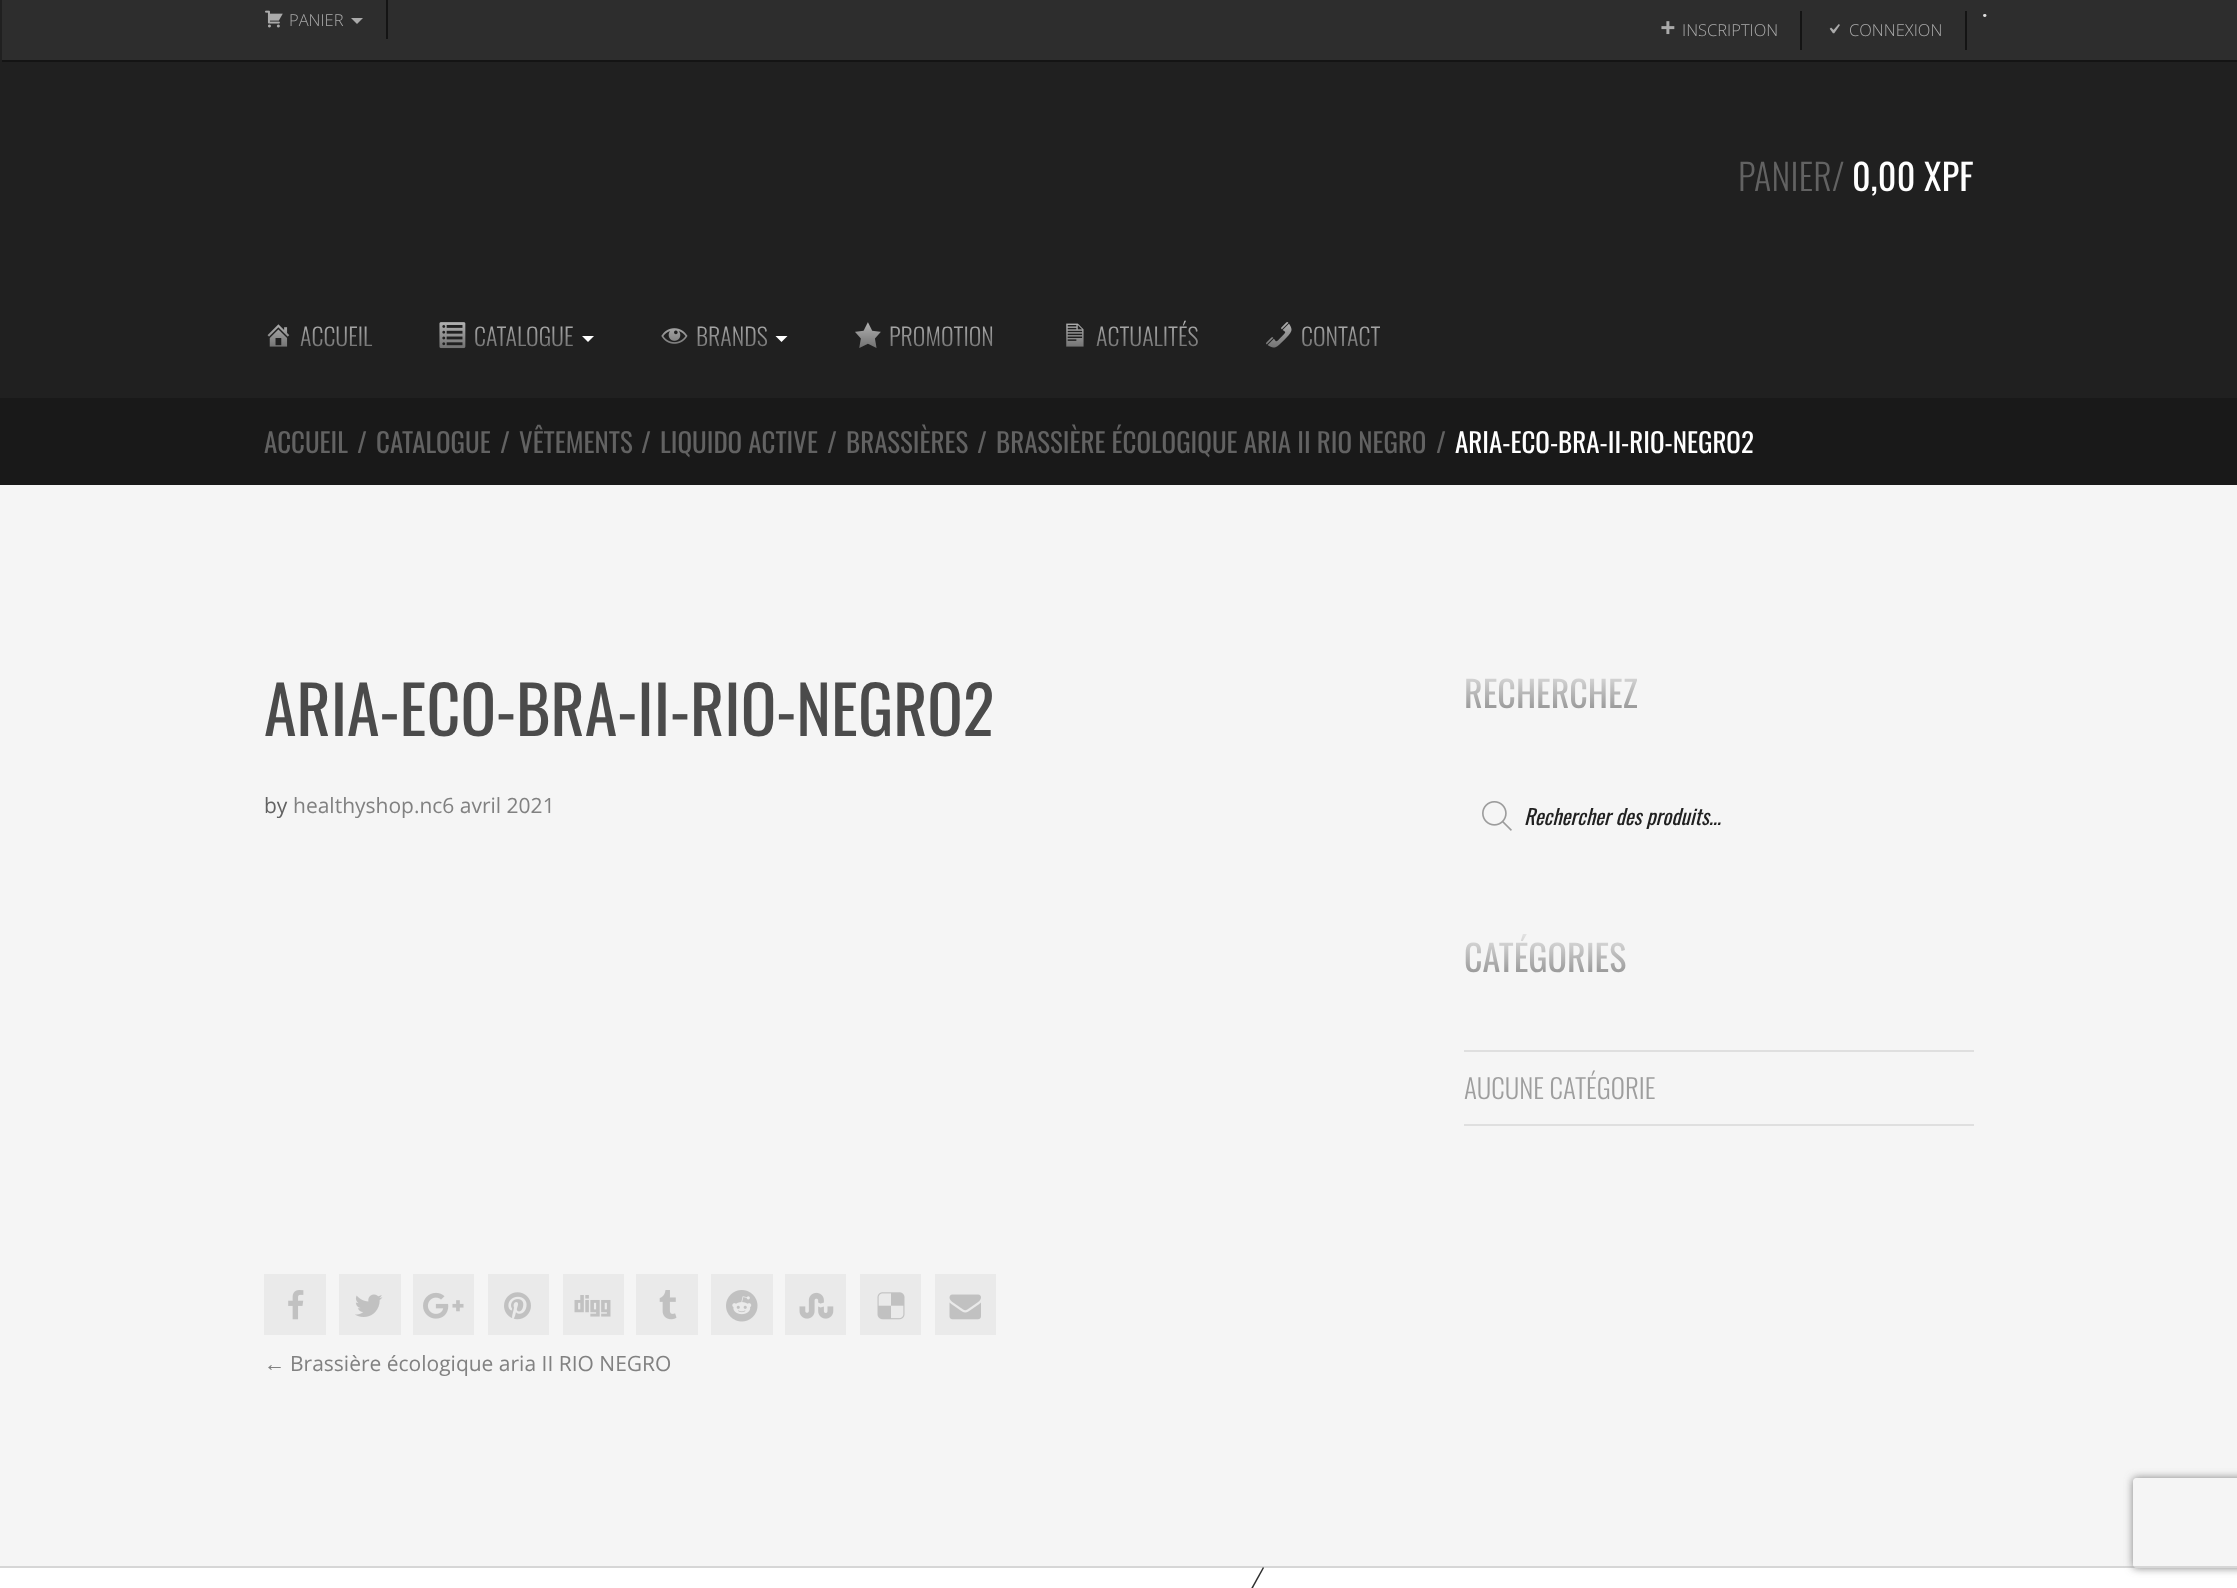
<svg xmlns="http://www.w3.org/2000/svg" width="2237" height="1588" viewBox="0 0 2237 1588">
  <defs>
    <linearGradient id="g1" gradientUnits="userSpaceOnUse" x1="318" y1="298" x2="318" y2="373"><stop offset="0" stop-color="#eeeeee"/><stop offset="1" stop-color="#333333"/></linearGradient>
    <linearGradient id="g2" gradientUnits="userSpaceOnUse" x1="516" y1="298" x2="516" y2="373"><stop offset="0" stop-color="#eeeeee"/><stop offset="1" stop-color="#333333"/></linearGradient>
    <linearGradient id="g3" gradientUnits="userSpaceOnUse" x1="724" y1="298" x2="724" y2="373"><stop offset="0" stop-color="#eeeeee"/><stop offset="1" stop-color="#333333"/></linearGradient>
    <linearGradient id="g4" gradientUnits="userSpaceOnUse" x1="924" y1="298" x2="924" y2="373"><stop offset="0" stop-color="#eeeeee"/><stop offset="1" stop-color="#333333"/></linearGradient>
    <linearGradient id="g5" gradientUnits="userSpaceOnUse" x1="1129" y1="298" x2="1129" y2="373"><stop offset="0" stop-color="#eeeeee"/><stop offset="1" stop-color="#333333"/></linearGradient>
    <linearGradient id="g6" gradientUnits="userSpaceOnUse" x1="1322" y1="298" x2="1322" y2="373"><stop offset="0" stop-color="#eeeeee"/><stop offset="1" stop-color="#333333"/></linearGradient>
    <linearGradient id="g7" gradientUnits="userSpaceOnUse" x1="1719" y1="664" x2="1719" y2="763"><stop offset="0" stop-color="#eeeeee"/><stop offset="1" stop-color="#333333"/></linearGradient>
    <linearGradient id="g8" gradientUnits="userSpaceOnUse" x1="1719" y1="928" x2="1719" y2="1027"><stop offset="0" stop-color="#eeeeee"/><stop offset="1" stop-color="#333333"/></linearGradient>
    <clipPath id="clip1"><path d="M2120 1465H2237V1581H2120ZM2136 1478H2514C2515.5 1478 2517 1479.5 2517 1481V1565C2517 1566.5 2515.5 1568 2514 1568H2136C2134.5 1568 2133 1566.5 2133 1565V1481C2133 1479.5 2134.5 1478 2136 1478Z" clip-rule="evenodd"/></clipPath>
    <filter id="blur1" x="-50%" y="-200%" width="200%" height="500%"><feGaussianBlur stdDeviation="4"/></filter>
  </defs>
  <rect width="100%" height="100%" fill="#ffffff"/>
  <rect x="0" y="0" width="2237" height="398" fill="#202020"/>
  <rect x="2" y="0" width="2235" height="60" fill="#2d2d2d"/>
  <rect x="2" y="60" width="2235" height="2" fill="#141414"/>
  <rect x="386" y="0" width="2" height="39" fill="#141414"/>
  <image x="265" y="10" width="18" height="18" href="img1.png"/>
  <text x="289" y="26" font-family="Open Sans" font-size="16.5" font-weight="300" fill="#aaaaaa">PANIER</text>
  <path d="M351 18H363L357 24Z" fill="#aaaaaa"/>
  <path d="M1984.5 15.5H1985" fill="none" stroke="#dddddd" stroke-width="2.9" stroke-linecap="round"/>
  <rect x="1800" y="11" width="2" height="39" fill="#141414"/>
  <image x="1661" y="21" width="14" height="14" href="img2.png"/>
  <text x="1682" y="36" font-family="Open Sans" font-size="16.5" font-weight="300" fill="#aaaaaa">INSCRIPTION</text>
  <rect x="1965" y="11" width="2" height="39" fill="#141414"/>
  <image x="1829" y="24" width="11" height="10" href="img3.png"/>
  <text x="1849" y="36" font-family="Open Sans" font-size="16.5" font-weight="300" fill="#aaaaaa">CONNEXION</text>
  <text x="1738" y="191" font-family="Oswald" font-size="36" font-weight="300" letter-spacing="0.25" fill="#626262">PANIER/</text>
  <text x="1852" y="191" font-family="Oswald" font-size="36" letter-spacing="0.25" fill="#ffffff">0,00 XPF</text>
  <image x="267" y="324" width="23" height="23" href="img4.png"/>
  <text x="300" y="346" font-family="Oswald" font-size="24" font-weight="300" fill="url(#g1)">ACCUEIL</text>
  <image x="439" y="322" width="27" height="27" href="img5.png"/>
  <text x="474" y="346" font-family="Oswald" font-size="24" font-weight="300" fill="url(#g2)">CATALOGUE</text>
  <path d="M582 336H594L588 342Z" fill="#ffffff"/>
  <image x="661" y="328" width="27" height="16" href="img6.png"/>
  <text x="696" y="346" font-family="Oswald" font-size="24" font-weight="300" fill="url(#g3)">BRANDS</text>
  <path d="M775.5 336H787.5L781.5 342Z" fill="#ffffff"/>
  <image x="855" y="322" width="26" height="26" href="img7.png"/>
  <text x="889" y="346" font-family="Oswald" font-size="24" font-weight="300" fill="url(#g4)">PROMOTION</text>
  <image x="1066" y="323" width="18" height="24" href="img8.png"/>
  <text x="1096" y="346" font-family="Oswald" font-size="24" font-weight="300" fill="url(#g5)">ACTUALITÉS</text>
  <image x="1266" y="322" width="26" height="26" href="img9.png"/>
  <text x="1301" y="346" font-family="Oswald" font-size="24" font-weight="300" fill="url(#g6)">CONTACT</text>
  <rect x="0" y="398" width="2237" height="87" fill="#191919"/>
  <text x="264" y="453" font-family="Oswald" font-size="27" fill="#626262">ACCUEIL</text>
  <text x="357" y="453" font-family="Oswald" font-size="27" fill="#626262">/</text>
  <text x="376" y="453" font-family="Oswald" font-size="27" fill="#626262">CATALOGUE</text>
  <text x="500" y="453" font-family="Oswald" font-size="27" fill="#626262">/</text>
  <text x="519" y="453" font-family="Oswald" font-size="27" fill="#626262">VÊTEMENTS</text>
  <text x="641" y="453" font-family="Oswald" font-size="27" fill="#626262">/</text>
  <text x="660" y="453" font-family="Oswald" font-size="27" fill="#626262">LIQUIDO ACTIVE</text>
  <text x="827" y="453" font-family="Oswald" font-size="27" fill="#626262">/</text>
  <text x="846" y="453" font-family="Oswald" font-size="27" fill="#626262">BRASSIÈRES</text>
  <text x="977" y="453" font-family="Oswald" font-size="27" fill="#626262">/</text>
  <text x="996" y="453" font-family="Oswald" font-size="27" fill="#626262">BRASSIÈRE ÉCOLOGIQUE ARIA II RIO NEGRO</text>
  <text x="1436" y="453" font-family="Oswald" font-size="27" fill="#626262">/</text>
  <text x="1455" y="453" font-family="Oswald" font-size="27" fill="#ffffff">ARIA-ECO-BRA-II-RIO-NEGRO2</text>
  <rect x="0" y="485" width="2237" height="1081" fill="#f5f5f5"/>
  <text x="264" y="736" font-family="Oswald" font-size="66" fill="#4b4b4b">ARIA-ECO-BRA-II-RIO-NEGRO2</text>
  <text x="264" y="813" font-family="Open Sans" font-size="21" fill="#626262">by</text>
  <text x="293" y="813" font-family="Open Sans" font-size="21" fill="#818181">healthyshop.nc6 avril 2021</text>
  <rect x="264" y="1274" width="62" height="61" fill="#eaeaea"/>
  <image x="288" y="1290" width="16" height="30" href="img10.png"/>
  <rect x="339" y="1274" width="62" height="61" fill="#eaeaea"/>
  <image x="355" y="1294" width="28" height="23" href="img11.png"/>
  <rect x="413" y="1274" width="61" height="61" fill="#eaeaea"/>
  <image x="423" y="1292" width="41" height="27" href="img12.png"/>
  <rect x="488" y="1274" width="61" height="61" fill="#eaeaea"/>
  <image x="504" y="1292" width="27" height="28" href="img13.png"/>
  <rect x="563" y="1274" width="61" height="61" fill="#eaeaea"/>
  <image x="574" y="1295" width="37" height="22" href="img14.png"/>
  <rect x="636" y="1274" width="62" height="61" fill="#eaeaea"/>
  <image x="659" y="1290" width="18" height="30" href="img15.png"/>
  <rect x="711" y="1274" width="62" height="61" fill="#eaeaea"/>
  <image x="726" y="1290" width="32" height="32" href="img16.png"/>
  <rect x="785" y="1274" width="61" height="61" fill="#eaeaea"/>
  <image x="799" y="1292" width="35" height="27" href="img17.png"/>
  <rect x="860" y="1274" width="61" height="61" fill="#eaeaea"/>
  <image x="877" y="1292" width="28" height="28" href="img18.png"/>
  <rect x="935" y="1274" width="61" height="61" fill="#eaeaea"/>
  <image x="949" y="1294" width="32" height="26" href="img19.png"/>
  <text x="264" y="1371" font-family="Liberation Sans" font-size="21" fill="#818181">←</text>
  <text x="290" y="1371" font-family="Open Sans" font-size="21" fill="#818181">Brassière écologique aria II RIO NEGRO</text>
  <text x="1464" y="708" font-family="Oswald" font-size="36" fill="url(#g7)">RECHERCHEZ</text>
  <image x="1482" y="801" width="30" height="30" href="img20.png"/>
  <text x="1524" y="825" font-family="Oswald" font-size="21" font-style="italic" fill="#212121">Rechercher des produits...</text>
  <text x="1464" y="972" font-family="Oswald" font-size="36" fill="url(#g8)">CATÉGORIES</text>
  <rect x="1464" y="1050" width="510" height="2" fill="#dfdfdf"/>
  <rect x="1464" y="1124" width="510" height="2" fill="#dfdfdf"/>
  <text x="1464" y="1099" font-family="Oswald" font-size="27" font-weight="300" fill="#9e9e9e">AUCUNE CATÉGORIE</text>
  <rect x="0" y="1566" width="2237" height="2" fill="#d6d6d6"/>
  <path d="M1263 1567L1264 1568L1204 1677L1202 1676Z" fill="#2e2e2e"/>
  <g clip-path="url(#clip1)">
    <rect x="2133" y="1478" width="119" height="90" rx="3" fill="#808080" filter="url(#blur1)"/>
  </g>
</svg>
